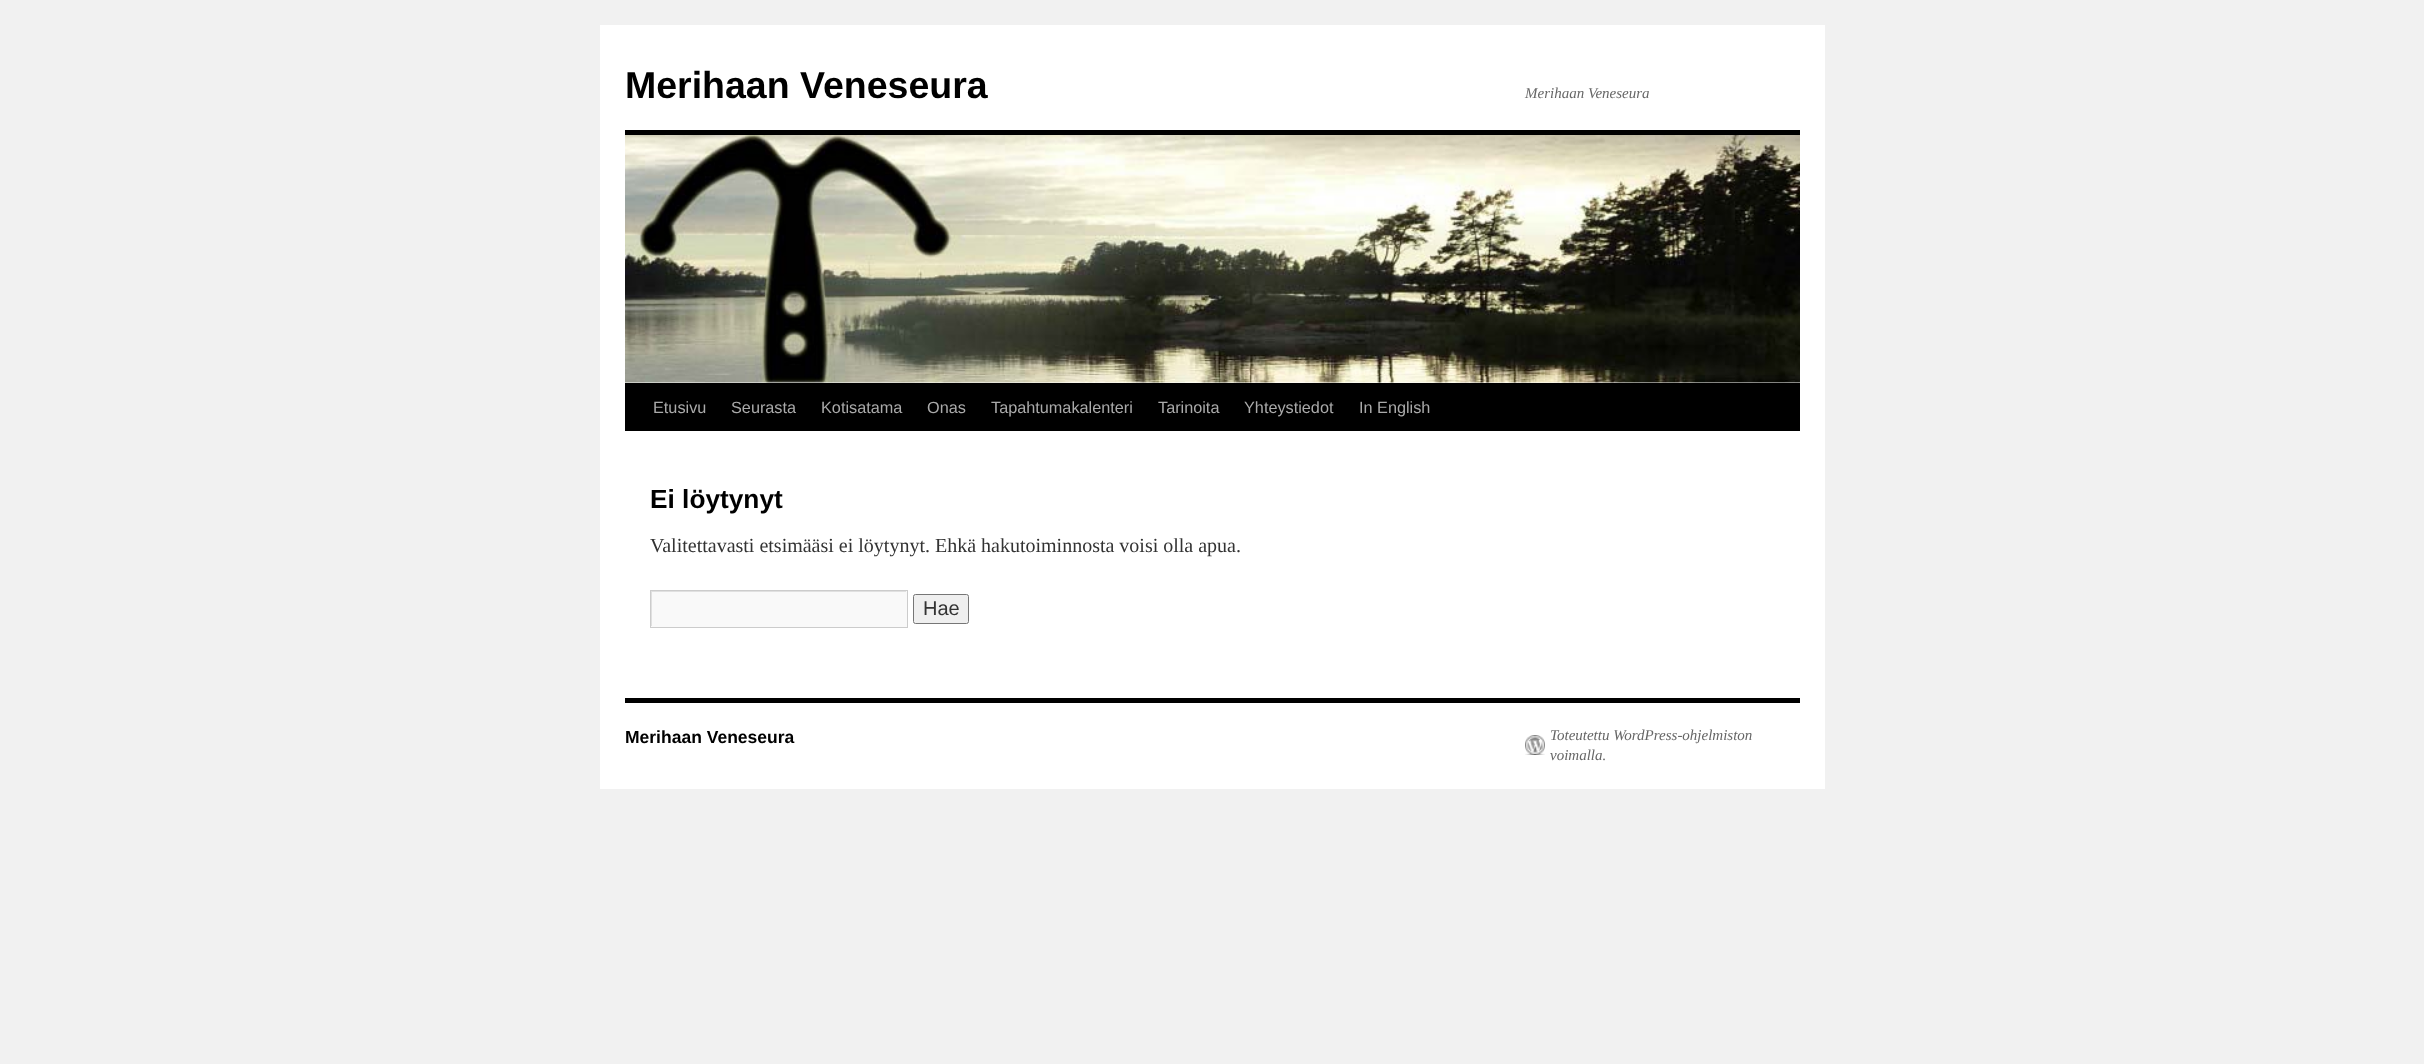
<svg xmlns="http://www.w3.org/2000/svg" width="2424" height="1064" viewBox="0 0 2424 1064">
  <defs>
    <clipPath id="clip1"><rect x="651" y="591" width="255" height="35"/></clipPath>
  </defs>
  <rect width="100%" height="100%" fill="#f1f1f1"/>
  <rect x="600" y="25" width="1225" height="764" fill="#ffffff"/>
  <text x="625" y="98" font-family="Liberation Sans" font-size="37.5" font-weight="bold" fill="#000000">Merihaan Veneseura</text>
  <text x="1525" y="98" font-family="Liberation Serif" font-size="15" font-style="italic" fill="#666666">Merihaan Veneseura</text>
  <rect x="625" y="130" width="1175" height="5" fill="#000000"/>
  <rect x="625" y="383" width="1175" height="48" fill="#000000"/>
  <image x="625" y="135" width="1175" height="248" href="img1.png"/>
  <text x="653" y="413" font-family="Liberation Sans" font-size="16.25" fill="#aaaaaa">Etusivu</text>
  <text x="731" y="413" font-family="Liberation Sans" font-size="16.25" fill="#aaaaaa">Seurasta</text>
  <text x="821" y="413" font-family="Liberation Sans" font-size="16.25" fill="#aaaaaa">Kotisatama</text>
  <text x="927" y="413" font-family="Liberation Sans" font-size="16.25" fill="#aaaaaa">Onas</text>
  <text x="991" y="413" font-family="Liberation Sans" font-size="16.25" fill="#aaaaaa">Tapahtumakalenteri</text>
  <text x="1158" y="413" font-family="Liberation Sans" font-size="16.25" fill="#aaaaaa">Tarinoita</text>
  <text x="1244" y="413" font-family="Liberation Sans" font-size="16.25" fill="#aaaaaa">Yhteystiedot</text>
  <text x="1359" y="413" font-family="Liberation Sans" font-size="16.25" fill="#aaaaaa">In English</text>
  <text x="650" y="508" font-family="Liberation Sans" font-size="26.25" font-weight="bold" fill="#000000">Ei löytynyt</text>
  <text x="650" y="552" font-family="Liberation Serif" font-size="20" fill="#333333">Valitettavasti etsimääsi ei löytynyt. Ehkä hakutoiminnosta voisi olla apua.</text>
  <rect x="651" y="591" width="256" height="36" fill="#f9f9f9"/>
  <g clip-path="url(#clip1)">
    <path d="M528 468H1030V750H528ZM652 592H908V628H652Z" fill="#e0e0e0" fill-rule="evenodd"/>
  </g>
  <rect x="650.5" y="590.5" width="257" height="37" fill="none" stroke="#cccccc"/>
  <rect x="913.5" y="594.5" width="55" height="29" rx="2" fill="#efefef" stroke="#767676"/>
  <text x="923" y="615" font-family="Liberation Sans" font-size="20" fill="#333333">Hae</text>
  <rect x="625" y="698" width="1175" height="5" fill="#000000"/>
  <text x="625" y="743" font-family="Liberation Sans" font-size="17.5" font-weight="bold" fill="#000000">Merihaan Veneseura</text>
  <image x="1525" y="735" width="20" height="20" href="img2.png"/>
  <text x="1550" y="740" font-family="Liberation Serif" font-size="15" font-style="italic" fill="#666666">Toteutettu WordPress-ohjelmiston</text>
  <text x="1550" y="760" font-family="Liberation Serif" font-size="15" font-style="italic" fill="#666666">voimalla.</text>
</svg>
